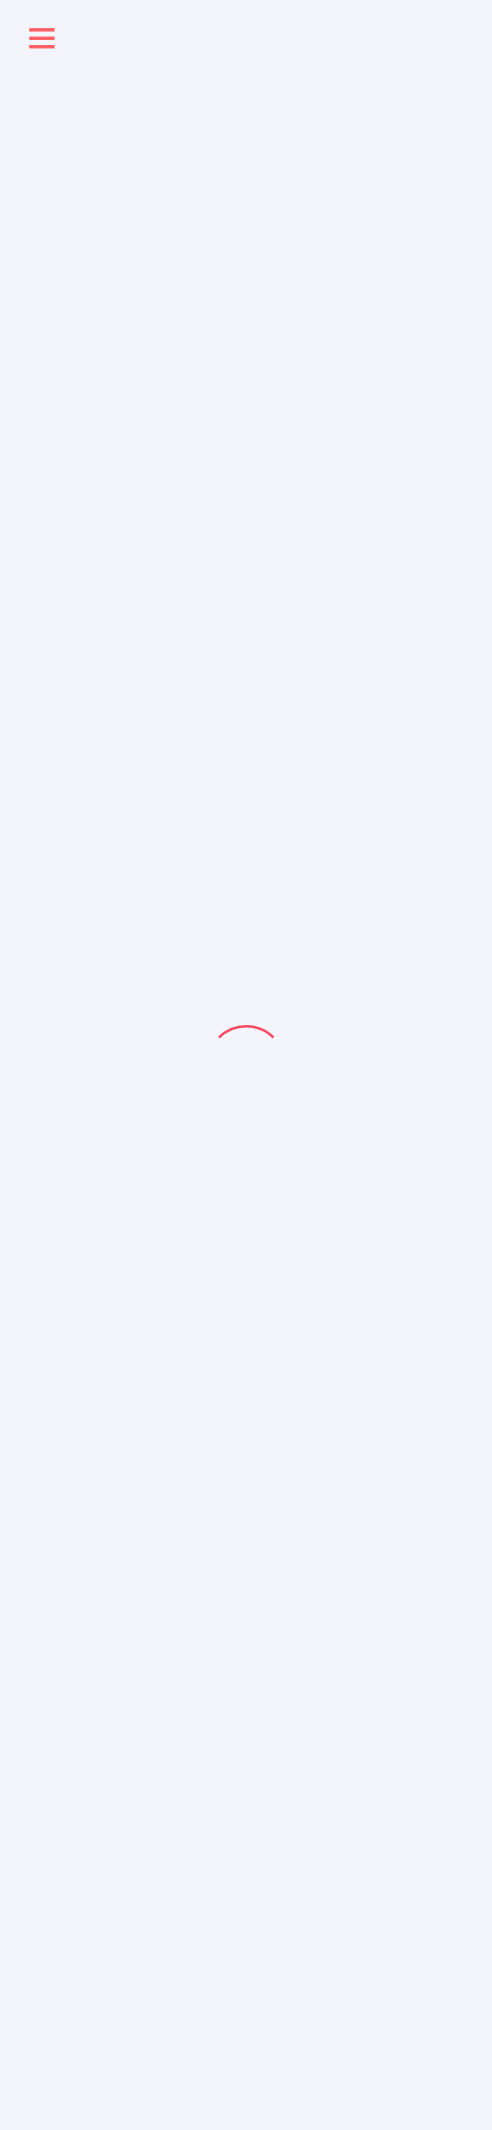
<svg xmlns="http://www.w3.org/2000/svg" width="492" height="2130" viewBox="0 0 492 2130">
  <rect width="100%" height="100%" fill="#f4f5fa"/>
  <image x="29" y="28" width="26" height="21" href="img1.png"/>
  <path d="M219 1037.5C234 1022.5 258.5 1022.5 273.5 1037.5M219 1037.5C234 1022.5 258.5 1022.5 273.5 1037.5M219 1037.5C234 1022.5 258.5 1022.5 273.5 1037.5M219 1037.5C234 1022.5 258.5 1022.5 273.5 1037.5" fill="none" stroke="#f94963" stroke-width="2.5"/>
</svg>
